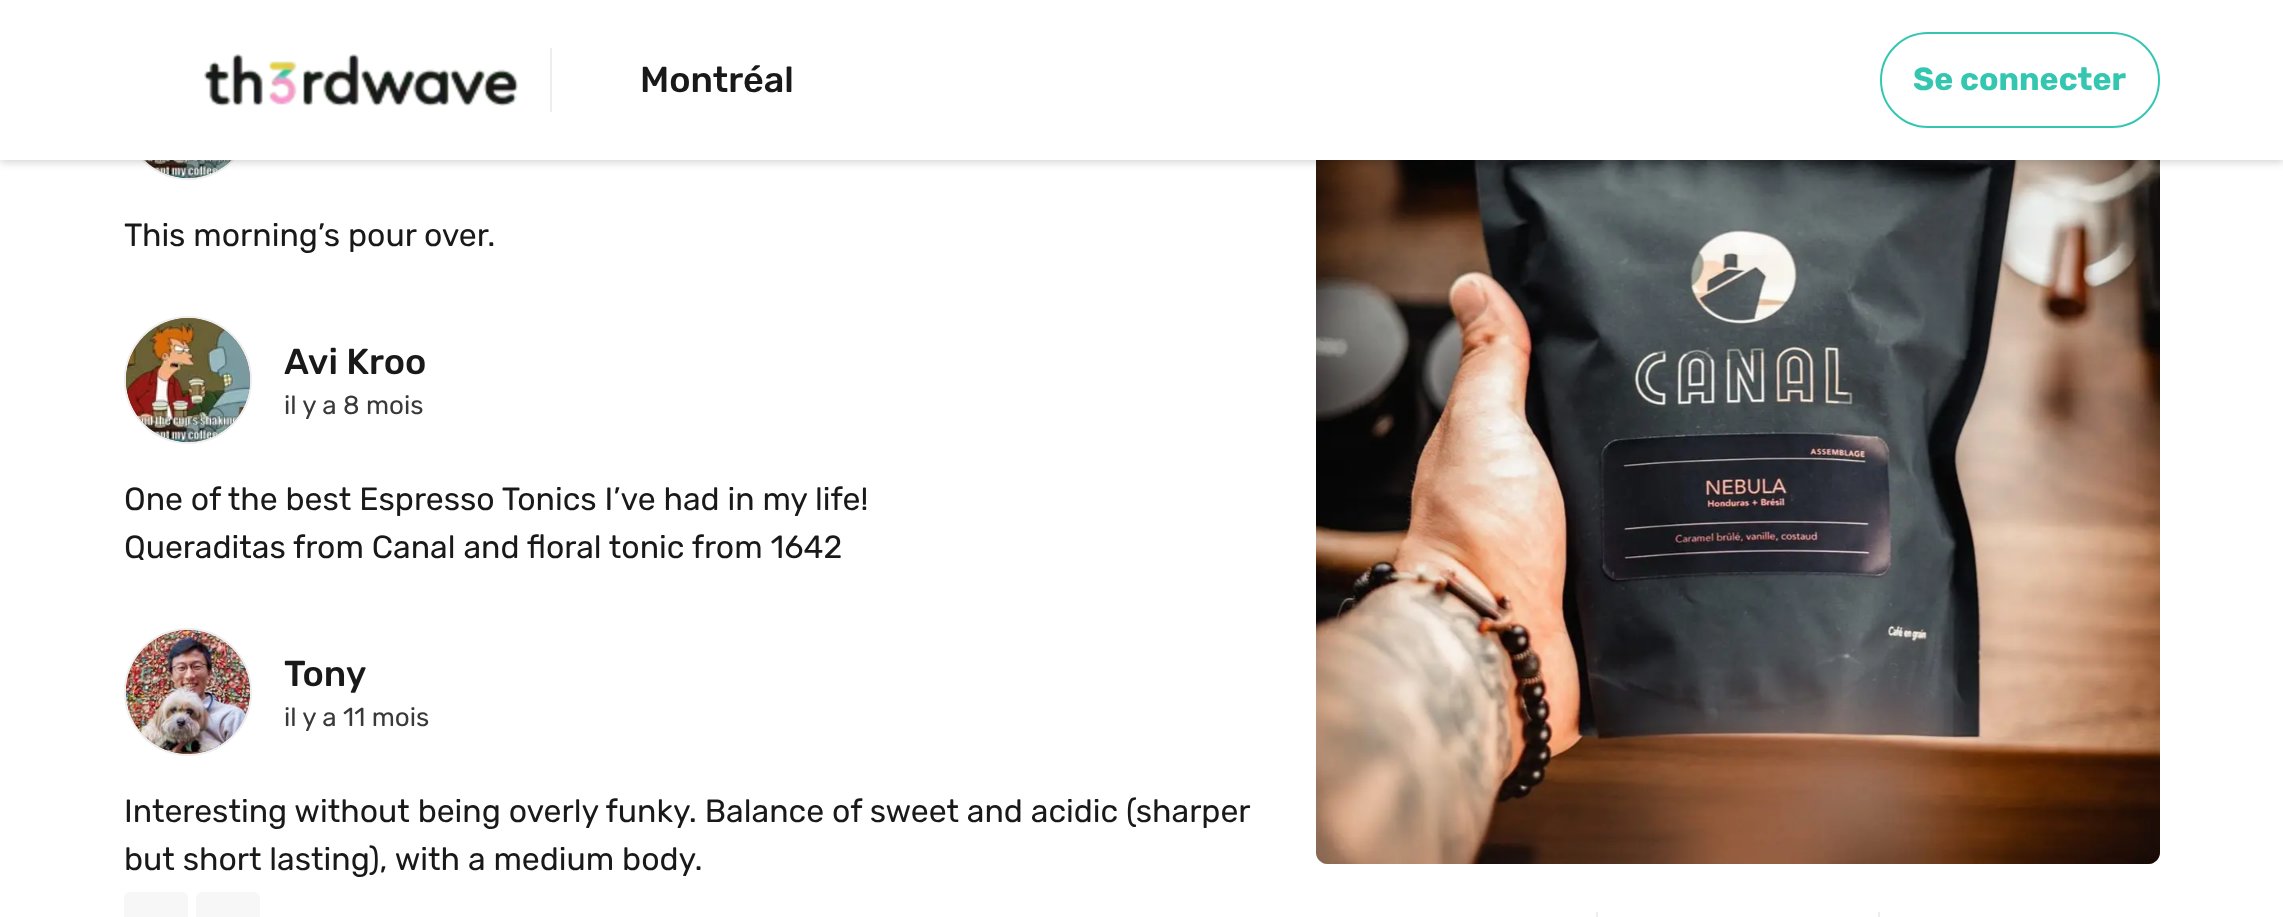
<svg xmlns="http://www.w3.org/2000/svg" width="2283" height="917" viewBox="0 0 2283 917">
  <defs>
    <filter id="blur1" x="-50%" y="-200%" width="200%" height="500%"><feGaussianBlur stdDeviation="4"/></filter>
  </defs>
  <rect width="100%" height="100%" fill="#ffffff"/>
  <circle cx="188" cy="116" r="63" fill="none" stroke="#eeeeee" stroke-width="2"/>
  <image x="144" y="160" width="88" height="18" href="img2.png"/>
  <image x="144" y="160" width="88" height="18" href="img3.png"/>
  <image x="1316" y="852" width="844" height="12" href="img9.png"/>
  <image x="1316" y="160" width="844" height="704" href="img8.png"/>
  <rect x="0" y="2" width="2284" height="160" fill="#000000" fill-opacity="0.18" filter="url(#blur1)"/>
  <rect x="0" y="0" width="2283" height="160" fill="#ffffff"/>
  <image x="204" y="54" width="314" height="52" href="img1.png"/>
  <rect x="550" y="48" width="2" height="64" fill="#eeeeee"/>
  <text x="640" y="92" font-family="Rubik" font-size="36" font-weight="500" fill="#191919">Montréal</text>
  <rect x="1881" y="33" width="278" height="94" rx="47" fill="none" stroke="#34c6b1" stroke-width="2"/>
  <text x="1913" y="90" font-family="Rubik" font-size="32" font-weight="bold" fill="#34c6b1">Se connecter</text>
  <text x="124" y="246" font-family="Rubik" font-size="32" fill="#191919">This morning’s pour over.</text>
  <circle cx="188" cy="380" r="63" fill="none" stroke="#eeeeee" stroke-width="2"/>
  <image x="126" y="318" width="124" height="124" href="img4.png"/>
  <image x="126" y="318" width="124" height="124" href="img5.png"/>
  <text x="284" y="374" font-family="Rubik" font-size="36" font-weight="500" fill="#191919">Avi Kroo</text>
  <text x="284" y="414" font-family="Rubik" font-size="26" fill="#393939">il y a 8 mois</text>
  <text x="124" y="510" font-family="Rubik" font-size="32" fill="#191919">One of the best Espresso Tonics I’ve had in my life!</text>
  <text x="124" y="558" font-family="Rubik" font-size="32" fill="#191919">Queraditas from Canal and floral tonic from 1642</text>
  <circle cx="188" cy="692" r="63" fill="none" stroke="#eeeeee" stroke-width="2"/>
  <image x="126" y="630" width="124" height="124" href="img6.png"/>
  <image x="126" y="630" width="124" height="124" href="img7.png"/>
  <text x="284" y="686" font-family="Rubik" font-size="36" font-weight="500" fill="#191919">Tony</text>
  <text x="284" y="726" font-family="Rubik" font-size="26" fill="#393939">il y a 11 mois</text>
  <text x="124" y="822" font-family="Rubik" font-size="32" fill="#191919">Interesting without being overly funky. Balance of sweet and acidic (sharper</text>
  <text x="124" y="870" font-family="Rubik" font-size="32" fill="#191919">but short lasting), with a medium body.</text>
  <rect x="124" y="892" width="64" height="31" rx="6" fill="#f7f7f7"/>
  <rect x="196" y="892" width="64" height="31" rx="6" fill="#f7f7f7"/>
  <rect x="1596" y="912" width="2" height="5" fill="#eeeeee"/>
  <rect x="1878" y="912" width="2" height="5" fill="#eeeeee"/>
</svg>
